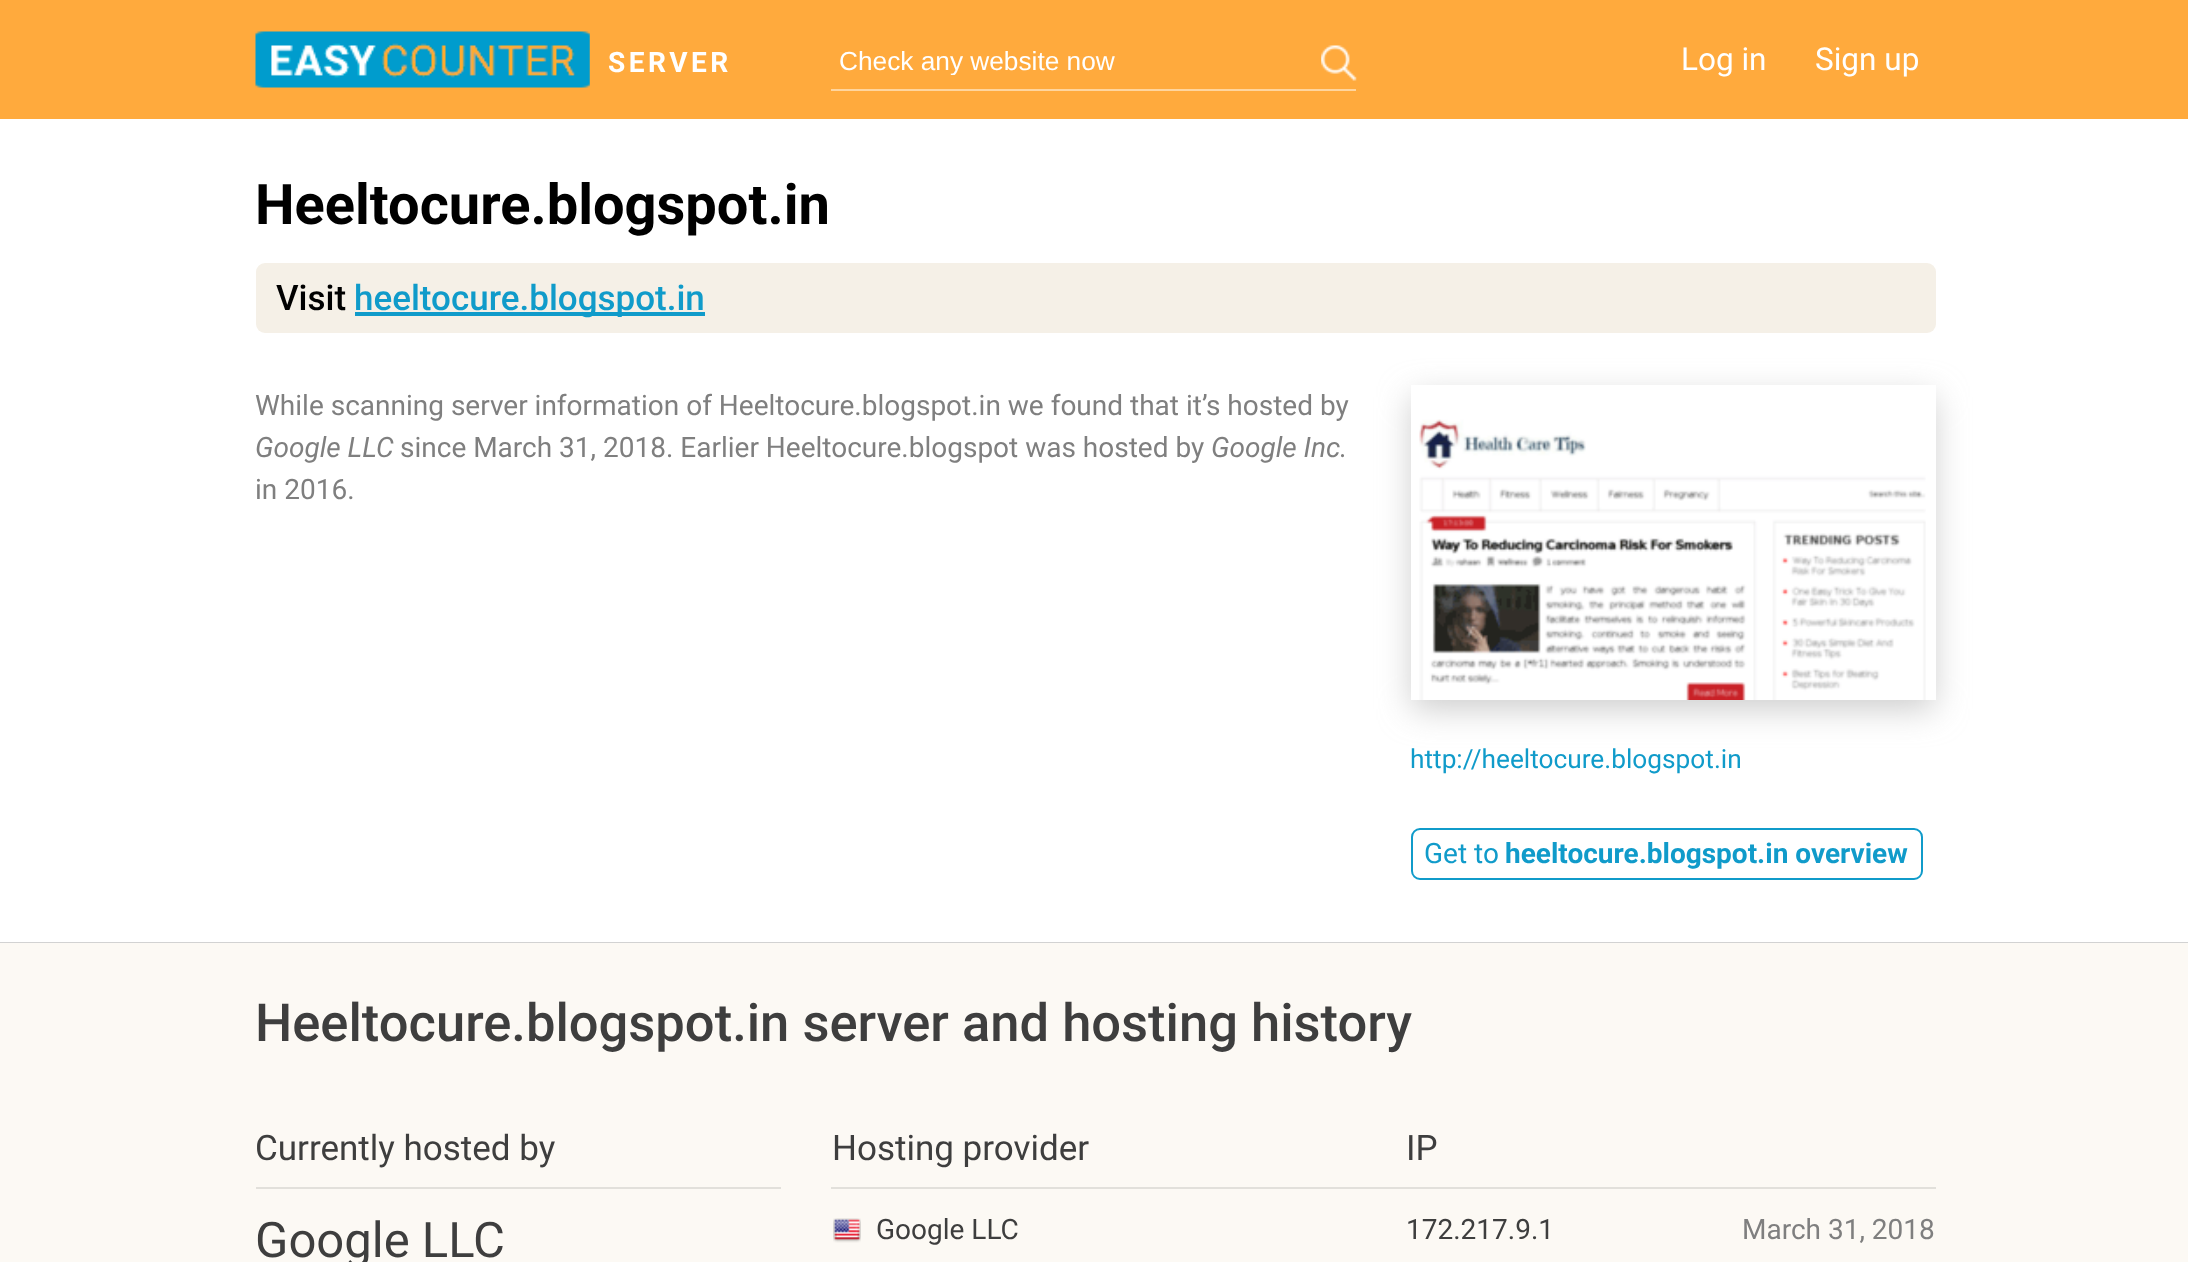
<svg xmlns="http://www.w3.org/2000/svg" width="2188" height="1262" viewBox="0 0 2188 1262">
  <defs>
    <clipPath id="clip1"><rect x="840" y="46" width="474" height="29"/></clipPath>
    <clipPath id="clip2"><path d="M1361 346H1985V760H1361ZM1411 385H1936V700H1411Z" clip-rule="evenodd"/></clipPath>
    <filter id="blur1" x="-50%" y="-200%" width="200%" height="500%"><feGaussianBlur stdDeviation="16.5"/></filter>
  </defs>
  <rect width="100%" height="100%" fill="#ffffff"/>
  <rect x="0" y="0" width="2188" height="119" fill="#ffaa3d"/>
  <image x="255" y="31" width="335" height="57" href="img1.png"/>
  <text x="608" y="72" font-family="Roboto" font-size="28" font-weight="bold" letter-spacing="3.5" fill="#ffffff">SERVER</text>
  <rect x="831" y="89" width="525" height="2" fill="#ffd59e"/>
  <g clip-path="url(#clip1)">
    <text x="839" y="70" font-family="Liberation Sans" font-size="26.25" fill="#ffffff">Check any website now</text>
  </g>
  <image x="1321" y="45" width="36" height="36" href="img2.png"/>
  <text x="1681" y="70" font-family="Roboto" font-size="31.5" fill="#ffffff">Log in</text>
  <text x="1815" y="70" font-family="Roboto" font-size="31.5" fill="#ffffff">Sign up</text>
  <rect x="0" y="942" width="2188" height="1" fill="#d2d2d2"/>
  <text x="255" y="224" font-family="Roboto" font-size="56" font-weight="bold" fill="#000000">Heeltocure.blogspot.in</text>
  <rect x="256" y="263" width="1680" height="70" rx="9" fill="#f5f0e7"/>
  <text x="276" y="310" font-family="Roboto" font-size="35" font-weight="500" fill="#000000">Visit</text>
  <rect x="355" y="312" width="350" height="4" fill="#109bca"/>
  <text x="354" y="310" font-family="Roboto" font-size="35" font-weight="500" fill="#109bca">heeltocure.blogspot.in</text>
  <text x="255" y="415" font-family="Roboto" font-size="28" fill="#7f7f7f">While scanning server information of Heeltocure.blogspot.in we found that it’s hosted by</text>
  <text x="255" y="457" font-family="Roboto" font-size="28" font-style="italic" fill="#7f7f7f">Google LLC</text>
  <text x="400" y="457" font-family="Roboto" font-size="28" fill="#7f7f7f">since March 31, 2018. Earlier Heeltocure.blogspot was hosted by</text>
  <text x="1211" y="457" font-family="Roboto" font-size="28" font-style="italic" fill="#7f7f7f">Google Inc.</text>
  <text x="255" y="499" font-family="Roboto" font-size="28" fill="#7f7f7f">in 2016.</text>
  <g clip-path="url(#clip2)">
    <rect x="1412" y="397" width="522" height="312" fill="#cccccc" filter="url(#blur1)"/>
  </g>
  <image x="1419" y="419" width="507" height="281" href="img3.png"/>
  <text x="1410" y="768" font-family="Roboto" font-size="26.25" fill="#109bca">http://heeltocure.blogspot.in</text>
  <rect x="1412" y="829" width="510" height="50" rx="8" fill="none" stroke="#109bca" stroke-width="2"/>
  <text x="1424" y="863" font-family="Roboto" font-size="28" fill="#109bca">Get to</text>
  <text x="1505" y="863" font-family="Roboto" font-size="28" font-weight="bold" fill="#109bca">heeltocure.blogspot.in overview</text>
  <rect x="0" y="943" width="2188" height="319" fill="#fcf9f4"/>
  <text x="255" y="1041" font-family="Roboto" font-size="52.5" font-weight="500" fill="#3e3e3e">Heeltocure.blogspot.in server and hosting history</text>
  <rect x="256" y="1187" width="525" height="2" fill="#e2e0db"/>
  <text x="255" y="1160" font-family="Roboto" font-size="35" fill="#3e3e3e">Currently hosted by</text>
  <text x="255" y="1257" font-family="Roboto" font-size="49" fill="#3e3e3e">Google LLC</text>
  <text x="832" y="1160" font-family="Roboto" font-size="35" fill="#3e3e3e">Hosting provider</text>
  <rect x="831" y="1187" width="1105" height="2" fill="#e2e0db"/>
  <text x="1406" y="1160" font-family="Roboto" font-size="35" fill="#3e3e3e">IP</text>
  <image x="833" y="1218" width="28" height="25" href="img4.png"/>
  <text x="876" y="1239" font-family="Roboto" font-size="28" fill="#3e3e3e">Google LLC</text>
  <text x="1406" y="1239" font-family="Roboto" font-size="28" fill="#3e3e3e">172.217.9.1</text>
  <text x="1742" y="1239" font-family="Roboto" font-size="28" fill="#7f7f7f">March 31, 2018</text>
</svg>
